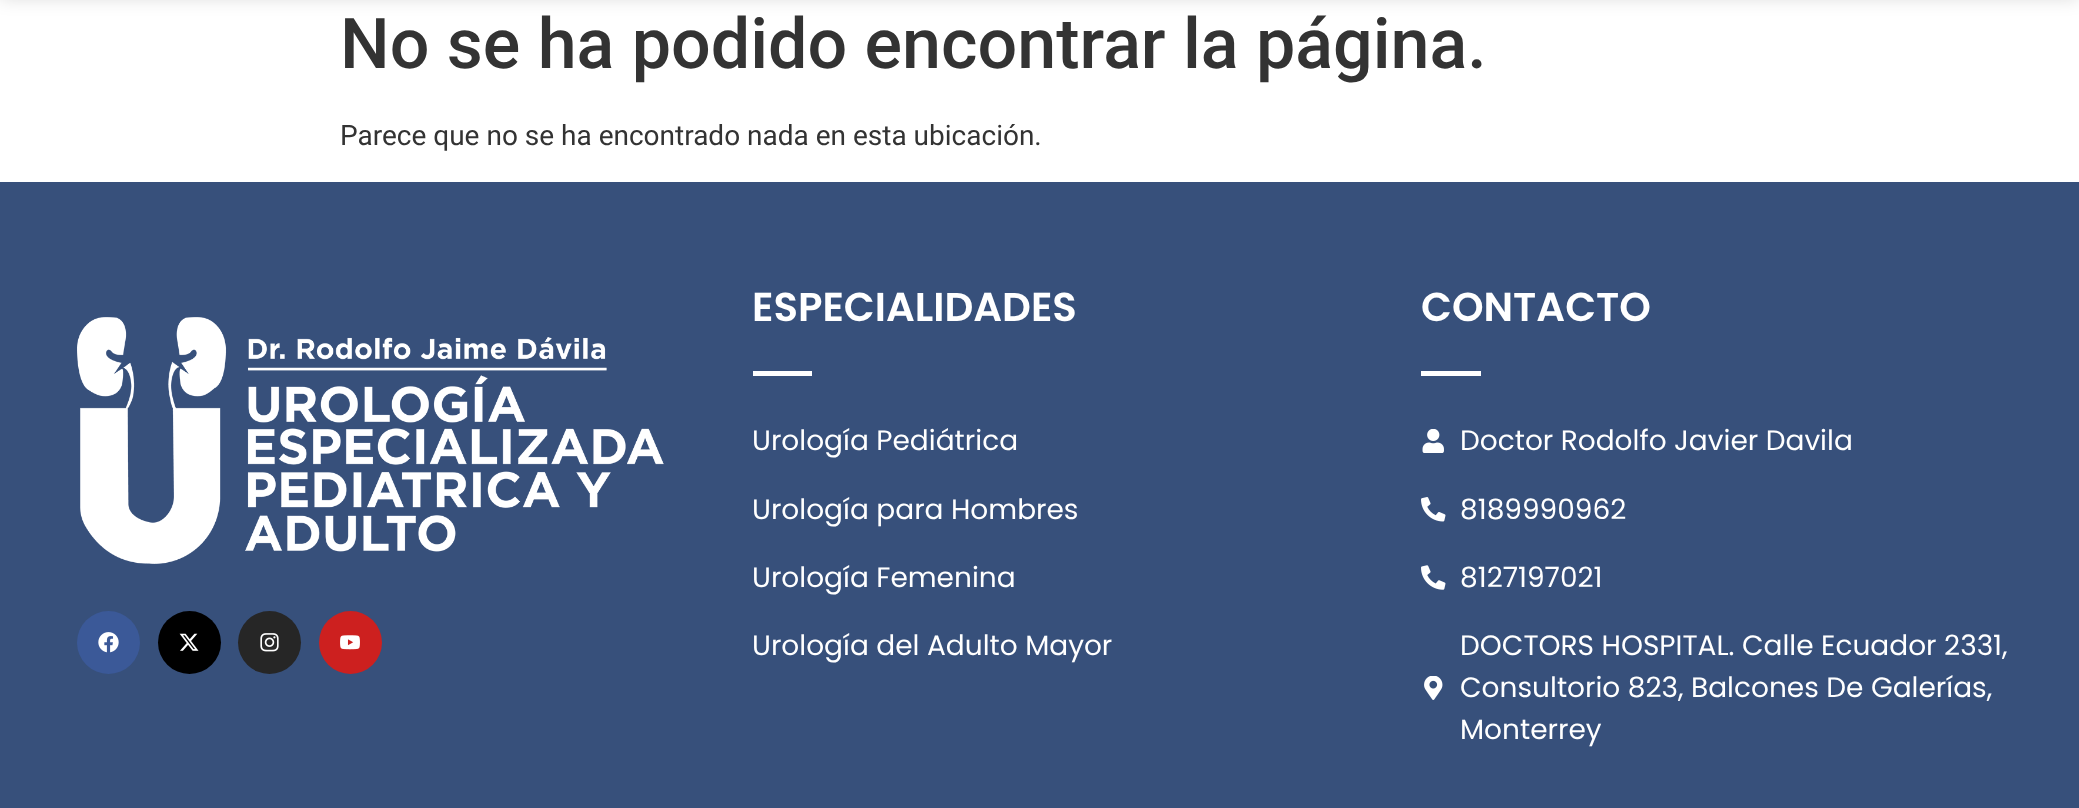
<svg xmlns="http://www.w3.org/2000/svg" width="2079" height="808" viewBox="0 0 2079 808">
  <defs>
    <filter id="blur1" x="-50%" y="-200%" width="200%" height="500%"><feGaussianBlur stdDeviation="9"/></filter>
  </defs>
  <rect width="100%" height="100%" fill="#ffffff"/>
  <rect x="0" y="-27" width="2079" height="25" fill="#000000" fill-opacity="0.15" filter="url(#blur1)"/>
  <text x="340" y="68" font-family="Roboto" font-size="70" font-weight="500" fill="#333333">No se ha podido encontrar la página.</text>
  <text x="340" y="145" font-family="Roboto" font-size="28" fill="#333333">Parece que no se ha encontrado nada en esta ubicación.</text>
  <rect x="0" y="182" width="2079" height="626" fill="#37507b"/>
  <image x="77" y="317" width="587" height="247" href="img1.png"/>
  <circle cx="108.5" cy="642.5" r="31.5" fill="#3b5998"/>
  <image x="98" y="632" width="21" height="21" href="img2.png"/>
  <circle cx="189.5" cy="642.5" r="31.5" fill="#000000"/>
  <image x="179" y="633" width="20" height="18" href="img3.png"/>
  <circle cx="269.5" cy="642.5" r="31.5" fill="#262626"/>
  <image x="260" y="633" width="19" height="19" href="img4.png"/>
  <circle cx="350.5" cy="642.5" r="31.5" fill="#cd201f"/>
  <image x="340" y="635" width="20" height="15" href="img5.png"/>
  <text x="752" y="321" font-family="Poppins" font-size="40.25" font-weight="600" fill="#ffffff">ESPECIALIDADES</text>
  <rect x="753" y="371" width="59" height="5" fill="#ffffff"/>
  <text x="752" y="450" font-family="Poppins" font-size="28" fill="#ffffff">Urología Pediátrica</text>
  <text x="752" y="519" font-family="Poppins" font-size="28" fill="#ffffff">Urología para Hombres</text>
  <text x="752" y="587" font-family="Poppins" font-size="28" fill="#ffffff">Urología Femenina</text>
  <text x="752" y="655" font-family="Poppins" font-size="28" fill="#ffffff">Urología del Adulto Mayor</text>
  <text x="1421" y="321" font-family="Poppins" font-size="40.25" font-weight="600" fill="#ffffff">CONTACTO</text>
  <rect x="1421" y="371" width="60" height="5" fill="#ffffff"/>
  <image x="1422" y="429" width="22" height="24" href="img6.png"/>
  <text x="1460" y="450" font-family="Poppins" font-size="28" fill="#ffffff">Doctor Rodolfo Javier Davila</text>
  <image x="1421" y="497" width="25" height="25" href="img7.png"/>
  <text x="1460" y="519" font-family="Poppins" font-size="28" fill="#ffffff">8189990962</text>
  <image x="1421" y="565" width="25" height="25" href="img8.png"/>
  <text x="1460" y="587" font-family="Poppins" font-size="28" fill="#ffffff">8127197021</text>
  <image x="1424" y="676" width="19" height="24" href="img9.png"/>
  <text x="1460" y="655" font-family="Poppins" font-size="28" fill="#ffffff">DOCTORS HOSPITAL. Calle Ecuador 2331,</text>
  <text x="1460" y="697" font-family="Poppins" font-size="28" fill="#ffffff">Consultorio 823, Balcones De Galerías,</text>
  <text x="1460" y="739" font-family="Poppins" font-size="28" fill="#ffffff">Monterrey</text>
</svg>
